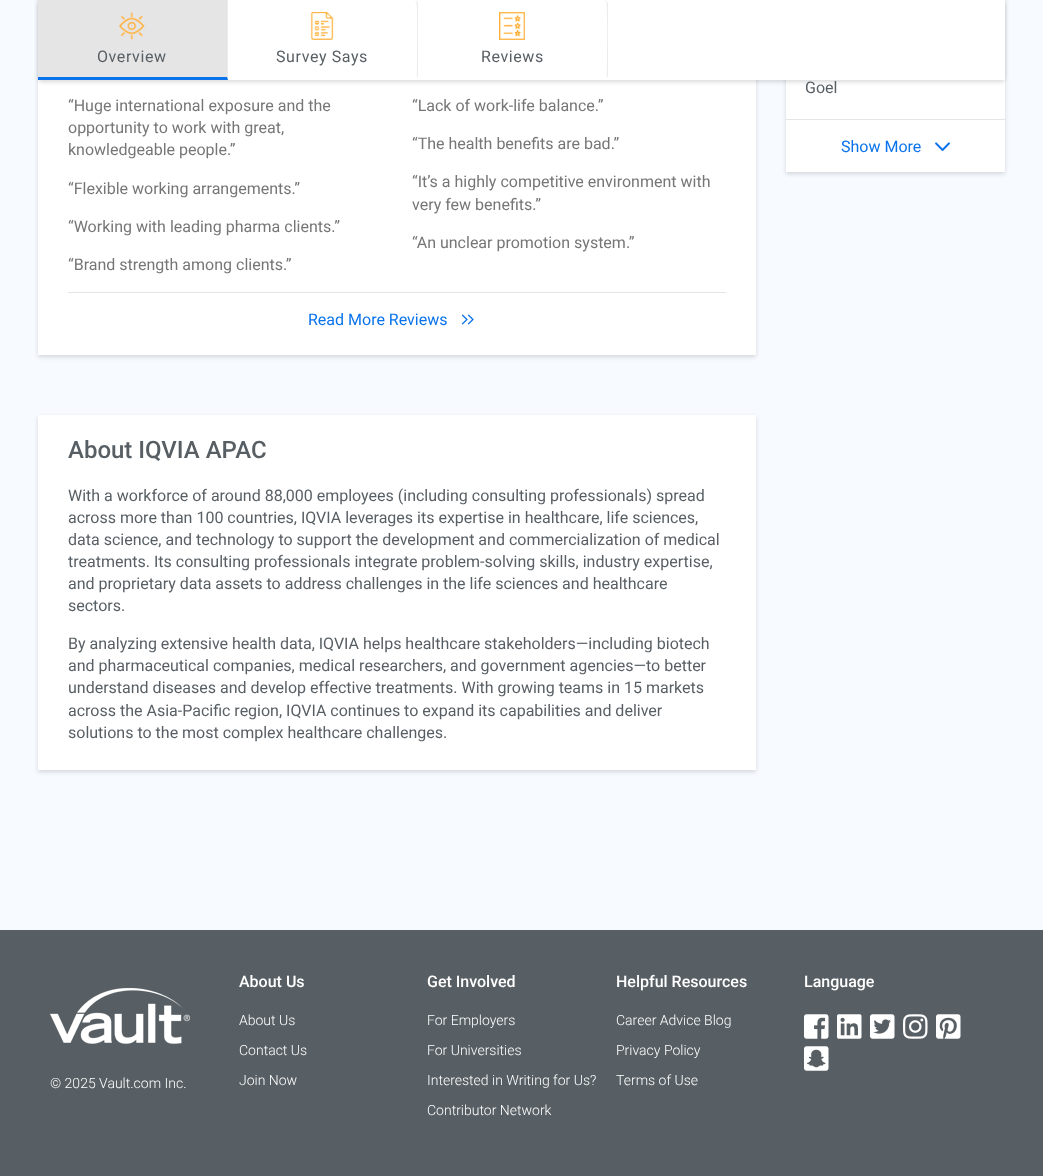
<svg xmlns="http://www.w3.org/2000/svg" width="1043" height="1176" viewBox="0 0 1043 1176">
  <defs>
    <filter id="blur1" x="-50%" y="-200%" width="200%" height="500%"><feGaussianBlur stdDeviation="2"/></filter>
  </defs>
  <rect width="100%" height="100%" fill="#f7fbff"/>
  <rect x="38" y="-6" width="718" height="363" fill="#000000" fill-opacity="0.15" filter="url(#blur1)"/>
  <rect x="38" y="80" width="718" height="275" fill="#ffffff"/>
  <rect x="786" y="-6" width="219" height="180" fill="#000000" fill-opacity="0.15" filter="url(#blur1)"/>
  <rect x="786" y="80" width="219" height="92" fill="#ffffff"/>
  <rect x="38" y="2" width="967" height="80" rx="4" fill="#000000" fill-opacity="0.15" filter="url(#blur1)"/>
  <rect x="228" y="0" width="777" height="80" fill="#ffffff"/>
  <rect x="38" y="0" width="190" height="80" fill="#e5e5e5"/>
  <path d="M228 0V80L227 77V0Z" fill="#ececec"/>
  <path d="M228 80H38V77H227Z" fill="#0a73eb"/>
  <image x="119" y="12" width="26" height="28" href="img1.png"/>
  <text x="97" y="62" font-family="Roboto" font-size="16" letter-spacing="0.6" fill="#585f64">Overview</text>
  <path d="M418 4C418 2 416 0 414 0L416 1C418 4 417 67 417 76V78L418 76Z" fill="#ececec"/>
  <image x="310" y="12" width="24" height="28" href="img2.png"/>
  <text x="276" y="62" font-family="Roboto" font-size="16" letter-spacing="0.6" fill="#585f64">Survey Says</text>
  <path d="M608 4C608 2 606 0 604 0L606 1C608 4 607 67 607 76V78L608 76Z" fill="#ececec"/>
  <image x="499" y="12" width="26" height="28" href="img3.png"/>
  <text x="481" y="62" font-family="Roboto" font-size="16" letter-spacing="0.6" fill="#585f64">Reviews</text>
  <text x="68" y="111" font-family="Roboto" font-size="16" fill="#767676">“Huge international exposure and the</text>
  <text x="68" y="133" font-family="Roboto" font-size="16" fill="#767676">opportunity to work with great,</text>
  <text x="68" y="155" font-family="Roboto" font-size="16" fill="#767676">knowledgeable people.”</text>
  <text x="68" y="194" font-family="Roboto" font-size="16" fill="#767676">“Flexible working arrangements.”</text>
  <text x="68" y="232" font-family="Roboto" font-size="16" fill="#767676">“Working with leading pharma clients.”</text>
  <text x="68" y="270" font-family="Roboto" font-size="16" fill="#767676">“Brand strength among clients.”</text>
  <text x="412" y="111" font-family="Roboto" font-size="16" fill="#767676">“Lack of work-life balance.”</text>
  <text x="412" y="149" font-family="Roboto" font-size="16" fill="#767676">“The health benefits are bad.”</text>
  <text x="412" y="187" font-family="Roboto" font-size="16" fill="#767676">“It’s a highly competitive environment with</text>
  <text x="412" y="210" font-family="Roboto" font-size="16" fill="#767676">very few benefits.”</text>
  <text x="412" y="248" font-family="Roboto" font-size="16" fill="#767676">“An unclear promotion system.”</text>
  <rect x="68" y="292" width="658" height="1" fill="#e5e5e5"/>
  <text x="308" y="325" font-family="Roboto" font-size="16" fill="#0a73eb">Read More Reviews</text>
  <image x="461" y="314" width="7" height="11" href="img4.png"/>
  <image x="467" y="314" width="7" height="11" href="img5.png"/>
  <rect x="38" y="417" width="718" height="355" fill="#000000" fill-opacity="0.15" filter="url(#blur1)"/>
  <rect x="38" y="415" width="718" height="355" fill="#ffffff"/>
  <text x="68" y="458" font-family="Roboto" font-size="24" font-weight="500" fill="#585f64">About IQVIA APAC</text>
  <text x="68" y="501" font-family="Roboto" font-size="16" fill="#585f64">With a workforce of around 88,000 employees (including consulting professionals) spread</text>
  <text x="68" y="523" font-family="Roboto" font-size="16" fill="#585f64">across more than 100 countries, IQVIA leverages its expertise in healthcare, life sciences,</text>
  <text x="68" y="545" font-family="Roboto" font-size="16" fill="#585f64">data science, and technology to support the development and commercialization of medical</text>
  <text x="68" y="567" font-family="Roboto" font-size="16" fill="#585f64">treatments. Its consulting professionals integrate problem-solving skills, industry expertise,</text>
  <text x="68" y="589" font-family="Roboto" font-size="16" fill="#585f64">and proprietary data assets to address challenges in the life sciences and healthcare</text>
  <text x="68" y="611" font-family="Roboto" font-size="16" fill="#585f64">sectors.</text>
  <text x="68" y="649" font-family="Roboto" font-size="16" fill="#585f64">By analyzing extensive health data, IQVIA helps healthcare stakeholders—including biotech</text>
  <text x="68" y="671" font-family="Roboto" font-size="16" fill="#585f64">and pharmaceutical companies, medical researchers, and government agencies—to better</text>
  <text x="68" y="693" font-family="Roboto" font-size="16" fill="#585f64">understand diseases and develop effective treatments. With growing teams in 15 markets</text>
  <text x="68" y="716" font-family="Roboto" font-size="16" fill="#585f64">across the Asia-Pacific region, IQVIA continues to expand its capabilities and deliver</text>
  <text x="68" y="738" font-family="Roboto" font-size="16" fill="#585f64">solutions to the most complex healthcare challenges.</text>
  <text x="805" y="93" font-family="Roboto" font-size="16" fill="#585f64">Goel</text>
  <rect x="786" y="119" width="219" height="1" fill="#e5e5e5"/>
  <text x="841" y="152" font-family="Roboto" font-size="16" fill="#0a73eb">Show More</text>
  <image x="935" y="142" width="15" height="9" href="img6.png"/>
  <rect x="0" y="930" width="1043" height="246" fill="#585f64"/>
  <text x="239" y="987" font-family="Roboto" font-size="16" font-weight="500" fill="#ffffff">About Us</text>
  <text x="239" y="1025" font-family="Roboto" font-size="14" font-weight="300" fill="#ffffff">About Us</text>
  <text x="239" y="1055" font-family="Roboto" font-size="14" font-weight="300" fill="#ffffff">Contact Us</text>
  <text x="239" y="1085" font-family="Roboto" font-size="14" font-weight="300" fill="#ffffff">Join Now</text>
  <text x="427" y="987" font-family="Roboto" font-size="16" font-weight="500" fill="#ffffff">Get Involved</text>
  <text x="427" y="1025" font-family="Roboto" font-size="14" font-weight="300" fill="#ffffff">For Employers</text>
  <text x="427" y="1055" font-family="Roboto" font-size="14" font-weight="300" fill="#ffffff">For Universities</text>
  <text x="427" y="1085" font-family="Roboto" font-size="14" font-weight="300" fill="#ffffff">Interested in Writing for Us?</text>
  <text x="427" y="1115" font-family="Roboto" font-size="14" font-weight="300" fill="#ffffff">Contributor Network</text>
  <text x="616" y="987" font-family="Roboto" font-size="16" font-weight="500" fill="#ffffff">Helpful Resources</text>
  <text x="616" y="1025" font-family="Roboto" font-size="14" font-weight="300" fill="#ffffff">Career Advice Blog</text>
  <text x="616" y="1055" font-family="Roboto" font-size="14" font-weight="300" fill="#ffffff">Privacy Policy</text>
  <text x="616" y="1085" font-family="Roboto" font-size="14" font-weight="300" fill="#ffffff">Terms of Use</text>
  <text x="804" y="987" font-family="Roboto" font-size="16" font-weight="500" fill="#ffffff">Language</text>
  <image x="804" y="1014" width="25" height="25" href="img7.png"/>
  <image x="837" y="1014" width="25" height="25" href="img8.png"/>
  <image x="870" y="1014" width="25" height="25" href="img9.png"/>
  <image x="903" y="1014" width="25" height="25" href="img10.png"/>
  <image x="936" y="1014" width="25" height="25" href="img11.png"/>
  <image x="804" y="1046" width="25" height="25" href="img12.png"/>
  <image x="50" y="988" width="140" height="56" href="img13.png"/>
  <text x="50" y="1088" font-family="Roboto" font-size="14" font-weight="300" fill="#ffffff">© 2025 Vault.com Inc.</text>
</svg>
